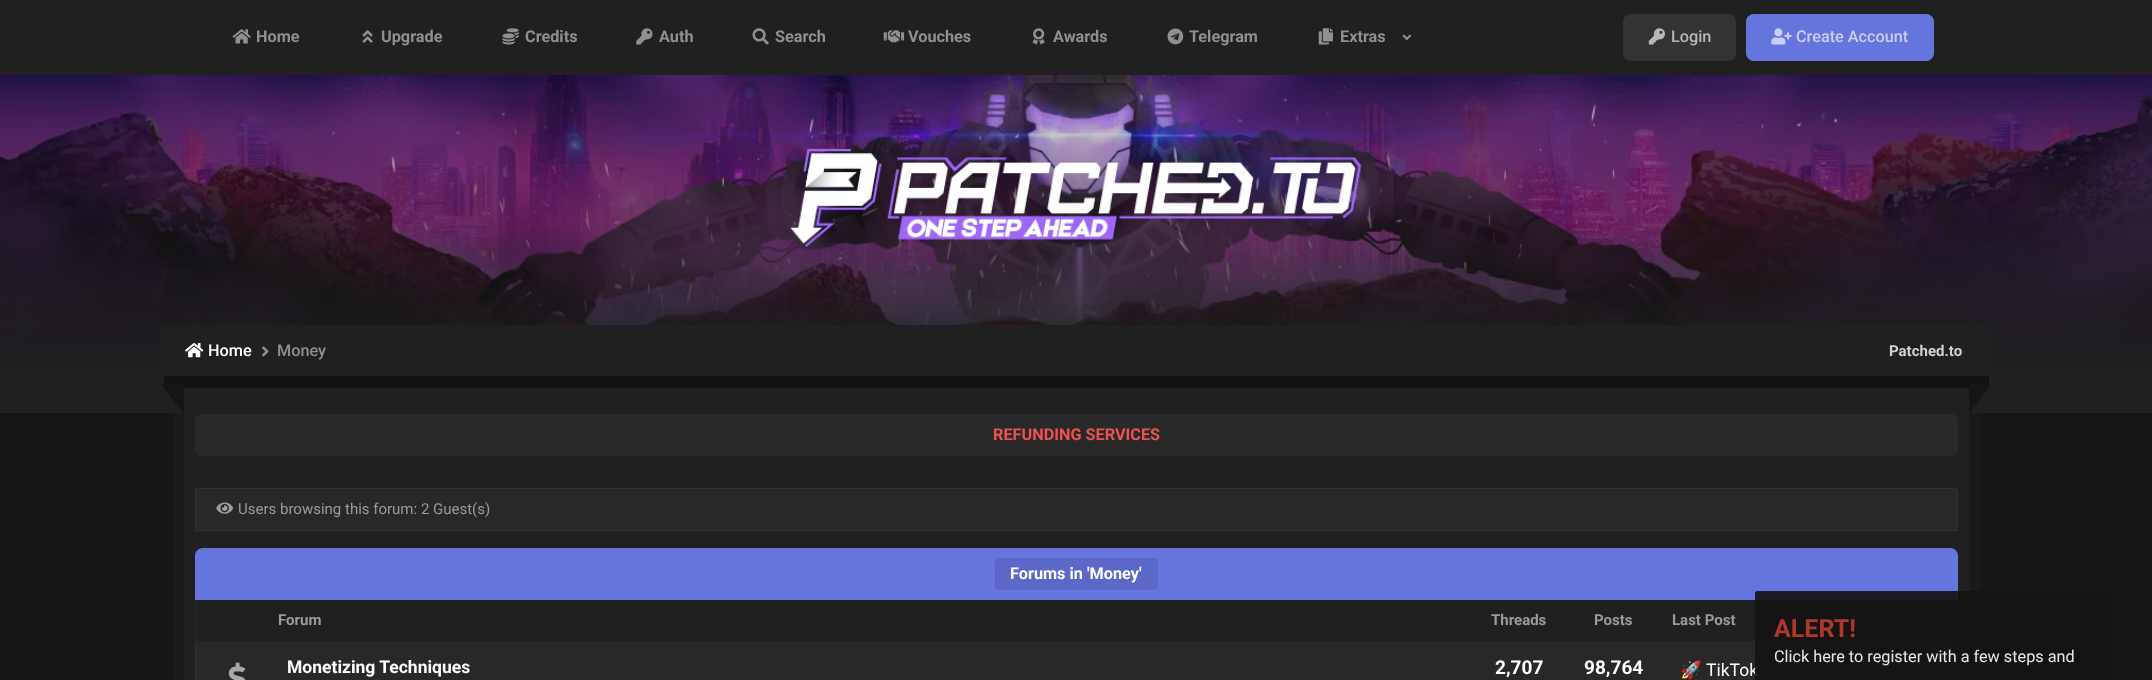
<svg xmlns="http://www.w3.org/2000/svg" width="2152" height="680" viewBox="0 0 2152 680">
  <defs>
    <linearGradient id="g1" gradientUnits="userSpaceOnUse" x1="1076" y1="75" x2="1076" y2="369"><stop offset="0" stop-color="#000000" stop-opacity="0.03"/><stop offset="1" stop-color="#1e1e1e"/></linearGradient>
  </defs>
  <rect width="100%" height="100%" fill="#161616"/>
  <rect x="0" y="0" width="2152" height="75" fill="#202020"/>
  <image x="232" y="29" width="19" height="15" href="img1.png"/>
  <text x="256" y="42" font-family="Roboto" font-size="16.25" font-weight="bold" fill="#909090">Home</text>
  <image x="362" y="30" width="11" height="13" href="img2.png"/>
  <text x="381" y="42" font-family="Roboto" font-size="16.25" font-weight="bold" fill="#909090">Upgrade</text>
  <image x="502" y="28" width="17" height="17" href="img3.png"/>
  <text x="525" y="42" font-family="Roboto" font-size="16.25" font-weight="bold" fill="#909090">Credits</text>
  <image x="636" y="28" width="17" height="17" href="img4.png"/>
  <text x="659" y="42" font-family="Roboto" font-size="16.25" font-weight="bold" fill="#909090">Auth</text>
  <image x="752" y="28" width="17" height="17" href="img5.png"/>
  <text x="775" y="42" font-family="Roboto" font-size="16.25" font-weight="bold" fill="#909090">Search</text>
  <image x="883" y="30" width="22" height="13" href="img6.png"/>
  <text x="908" y="42" font-family="Roboto" font-size="16.25" font-weight="bold" fill="#909090">Vouches</text>
  <image x="1032" y="28" width="13" height="17" href="img7.png"/>
  <text x="1053" y="42" font-family="Roboto" font-size="16.25" font-weight="bold" fill="#909090">Awards</text>
  <image x="1167" y="28" width="17" height="17" href="img8.png"/>
  <text x="1189" y="42" font-family="Roboto" font-size="16.25" font-weight="bold" fill="#909090">Telegram</text>
  <image x="1318" y="28" width="15" height="17" href="img9.png"/>
  <text x="1340" y="42" font-family="Roboto" font-size="16.25" font-weight="bold" fill="#909090">Extras</text>
  <image x="1402" y="34" width="9" height="6" href="img10.png"/>
  <rect x="1623" y="14" width="113" height="47" rx="8" fill="#333333"/>
  <image x="1648" y="28" width="17" height="17" href="img11.png"/>
  <text x="1671" y="42" font-family="Roboto" font-size="16.25" font-weight="500" fill="#b8b8b8">Login</text>
  <rect x="1746" y="14" width="188" height="47" rx="8" fill="#6674de"/>
  <image x="1771" y="28" width="21" height="17" href="img12.png"/>
  <text x="1796" y="42" font-family="Roboto" font-size="16.25" font-weight="500" fill="#c9cef3">Create Account</text>
  <image x="0" y="75" width="2152" height="292" href="img13.png"/>
  <rect x="0" y="75" width="2152" height="294" fill="url(#g1)"/>
  <image x="790" y="148" width="572" height="99" href="img14.png"/>
  <rect x="173" y="413" width="1807" height="267" fill="#202020"/>
  <path d="M172 388H1980V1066C1980 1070 1977 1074 1972 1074H180C176 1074 172 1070 172 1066ZM184 388H1969V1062H184Z" fill="#000000" fill-opacity="0.16" fill-rule="evenodd"/>
  <rect x="0" y="369" width="2152" height="44" fill="#202020"/>
  <path d="M161 325H1991V383C1991 386 1989 388 1986 388H166C163 388 161 386 161 383Z" fill="#202020"/>
  <rect x="164" y="376" width="1825" height="12" fill="#121212"/>
  <image x="185" y="343" width="19" height="15" href="img15.png"/>
  <text x="208" y="356" font-family="Roboto" font-size="16.25" font-weight="500" fill="#ffffff">Home</text>
  <image x="262" y="346" width="7" height="11" href="img16.png"/>
  <text x="277" y="356" font-family="Roboto" font-size="16.25" font-weight="500" fill="#909090">Money</text>
  <text x="1889" y="356" font-family="Roboto" font-size="15" font-weight="bold" fill="#d2d2d2">Patched.to</text>
  <path d="M184 384V414L161 384Z" fill="#151515"/>
  <path d="M1969 414V384H1991Z" fill="#151515"/>
  <rect x="195" y="414" width="1763" height="42" rx="6" fill="#292929"/>
  <text x="993" y="440" font-family="Roboto" font-size="16.25" font-weight="bold" fill="#ee5253">REFUNDING SERVICES</text>
  <rect x="195" y="488" width="1763" height="43" rx="4" fill="#282828"/>
  <rect x="195.5" y="488.5" width="1762" height="42" fill="none" stroke="#ffffff" stroke-opacity="0.05"/>
  <image x="216" y="502" width="18" height="12" href="img17.png"/>
  <text x="238" y="514" font-family="Roboto" font-size="15" fill="#9b9b9b">Users browsing this forum: 2 Guest(s)</text>
  <path d="M203 548H1950C1954.5 548 1958 551.5 1958 556V600H195V556C195 551.5 198.5 548 203 548Z" fill="#6674de"/>
  <rect x="1956" y="551" width="1" height="49" fill="#ffffff" fill-opacity="0.03"/>
  <rect x="195" y="551" width="1" height="49" fill="#ffffff" fill-opacity="0.03"/>
  <rect x="995" y="558" width="163" height="32" rx="4" fill="#5c68c8"/>
  <text x="1010" y="579" font-family="Roboto" font-size="16.25" font-weight="bold" fill="#ffffff">Forums in 'Money'</text>
  <rect x="195" y="600" width="1" height="41" fill="#272727"/>
  <text x="278" y="625" font-family="Roboto" font-size="15" font-weight="bold" fill="#9b9b9b">Forum</text>
  <text x="1491" y="625" font-family="Roboto" font-size="15" font-weight="bold" fill="#9b9b9b">Threads</text>
  <text x="1594" y="625" font-family="Roboto" font-size="15" font-weight="bold" fill="#9b9b9b">Posts</text>
  <rect x="1956" y="600" width="1" height="41" fill="#272727"/>
  <text x="1672" y="625" font-family="Roboto" font-size="15" font-weight="bold" fill="#9b9b9b">Last Post</text>
  <rect x="195" y="641" width="1763" height="39" fill="#282828"/>
  <path d="M195 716V641L196 642V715Z" fill="#2e2e2e"/>
  <image x="228" y="662" width="18" height="18" href="img18.png"/>
  <text x="287" y="673" font-family="Roboto" font-size="17.5" font-weight="bold" fill="#ffffff">Monetizing Techniques</text>
  <text x="1495" y="674" font-family="Roboto" font-size="19" font-weight="bold" fill="#ffffff">2,707</text>
  <text x="1584" y="674" font-family="Roboto" font-size="19" font-weight="bold" fill="#ffffff">98,764</text>
  <path d="M1958 641V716L1956 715V642Z" fill="#2e2e2e"/>
  <text x="1680" y="676" font-family="Noto Color Emoji" font-size="17.5" fill="#ffffff">🚀</text>
  <text x="1706" y="676" font-family="Roboto" font-size="17.5" fill="#ffffff">TikTok</text>
  <rect x="1755" y="591" width="358" height="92" rx="2.5" fill="#131313" fill-opacity="0.9"/>
  <text x="1774" y="637" font-family="Roboto" font-size="25" font-weight="bold" fill="#b0372a">ALERT!</text>
  <text x="1774" y="662" font-family="Roboto" font-size="16.25" fill="#e8e8e8">Click here to register with a few steps and</text>
</svg>
